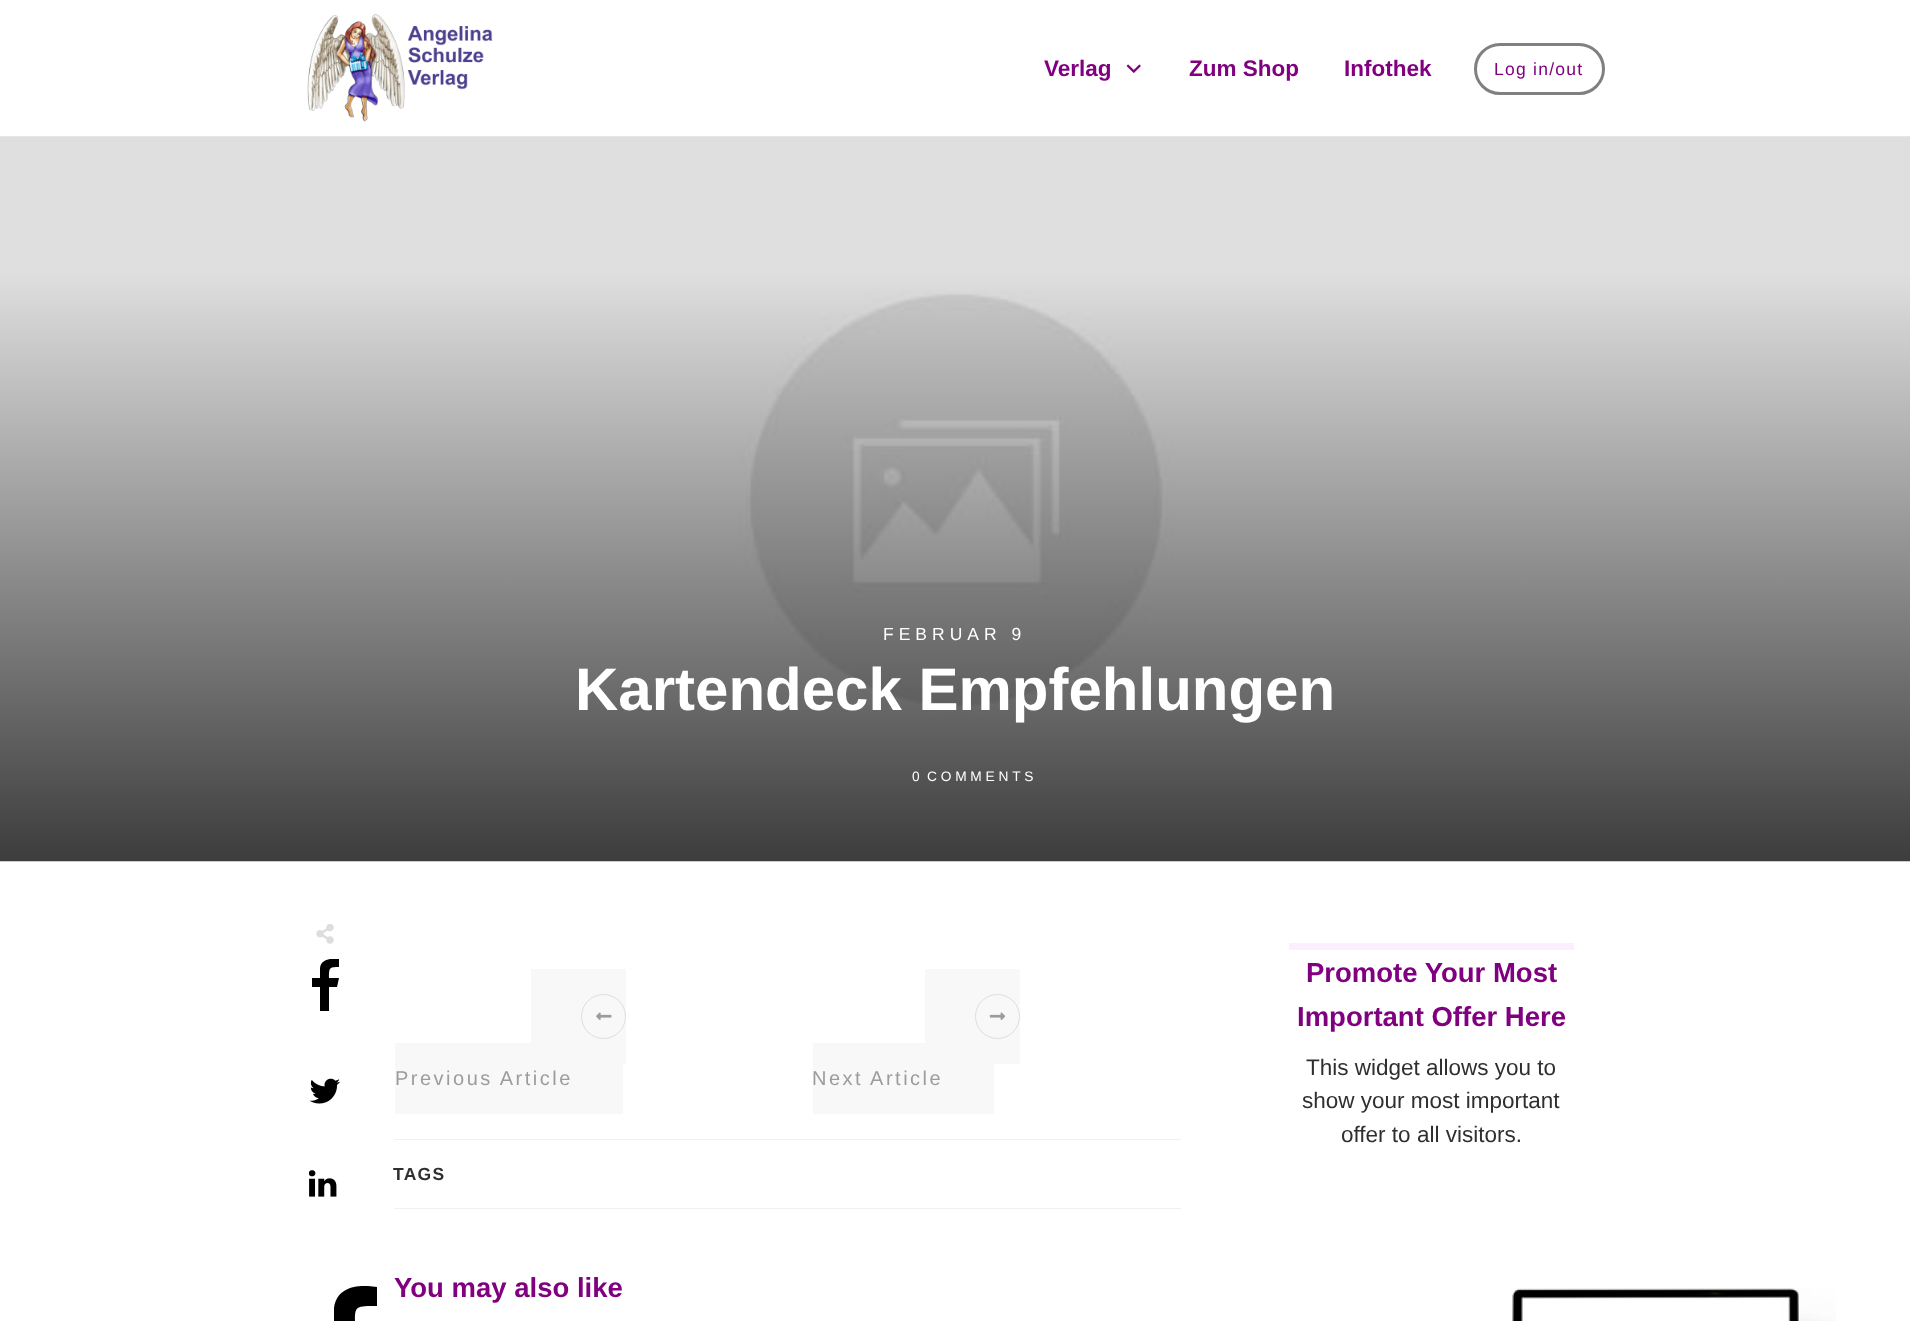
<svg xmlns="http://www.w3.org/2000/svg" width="1910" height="1321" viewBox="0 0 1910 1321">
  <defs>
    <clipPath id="clip1"><rect x="309" y="959" width="32" height="56"/></clipPath>
    <clipPath id="clip2"><rect x="309" y="1286" width="72" height="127"/></clipPath>
  </defs>
  <rect width="100%" height="100%" fill="#ffffff"/>
  <image x="307" y="14" width="186" height="108" href="img1.png"/>
  <text x="1044" y="76" font-family="Liberation Sans" font-size="22.5" font-weight="bold" fill="#800080">Verlag</text>
  <image x="1126" y="64" width="15" height="9" href="img2.png"/>
  <text x="1189" y="76" font-family="Liberation Sans" font-size="22.5" font-weight="bold" fill="#800080">Zum Shop</text>
  <text x="1344" y="76" font-family="Liberation Sans" font-size="22.5" font-weight="bold" fill="#800080">Infothek</text>
  <rect x="1475.5" y="44.5" width="128" height="49" rx="24.5" fill="none" stroke="#808080" stroke-width="3"/>
  <text x="1494" y="75" font-family="Liberation Sans" font-size="17.5" letter-spacing="1.25" fill="#800080">Log in/out</text>
  <image x="0" y="136" width="1910" height="726" href="img3.png"/>
  <text x="883" y="640" font-family="Liberation Sans" font-size="17.5" letter-spacing="5" fill="#ffffff">FEBRUAR 9</text>
  <text x="575" y="710" font-family="Liberation Sans" font-size="60" font-weight="bold" fill="#ffffff">Kartendeck Empfehlungen</text>
  <text x="912" y="781" font-family="Liberation Sans" font-size="13.75" fill="#ffffff">0</text>
  <text x="927" y="781" font-family="Liberation Sans" font-size="13.75" letter-spacing="3.75" fill="#ffffff">COMMENTS</text>
  <image x="316" y="924" width="18" height="20" href="img4.png"/>
  <g clip-path="url(#clip1)">
    <path d="M339 959V967C329 967 329 968 329 978H339L337 987H329V1011H320V987H312V978H320V968C321 959 331 958 339 959Z" fill="#000000"/>
  </g>
  <image x="309" y="1078" width="31" height="26" href="img5.png"/>
  <image x="309" y="1170" width="28" height="27" href="img6.png"/>
  <g clip-path="url(#clip2)">
    <path d="M377 1287V1306C353 1306 355 1306 355 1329H376L373 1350H355V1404H334V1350H315V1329H334V1308C337 1286 359 1284 377 1287Z" fill="#000000"/>
  </g>
  <rect x="531" y="969" width="95" height="95" fill="#f8f8f8"/>
  <rect x="395" y="1043" width="228" height="71" fill="#f8f8f8"/>
  <circle cx="603.5" cy="1016.5" r="22" fill="none" stroke="#dedede"/>
  <image x="596" y="1012" width="16" height="8" href="img7.png"/>
  <text x="395" y="1085" font-family="Liberation Sans" font-size="20" letter-spacing="2.5" fill="#9c9c9c">Previous Article</text>
  <rect x="925" y="969" width="95" height="95" fill="#f8f8f8"/>
  <rect x="813" y="1043" width="181" height="71" fill="#f8f8f8"/>
  <circle cx="997.5" cy="1016.5" r="22" fill="none" stroke="#dedede"/>
  <image x="989" y="1012" width="17" height="8" href="img8.png"/>
  <text x="812" y="1085" font-family="Liberation Sans" font-size="20" letter-spacing="2.5" fill="#9c9c9c">Next Article</text>
  <rect x="394" y="1139" width="787" height="1" fill="#f0f0f0"/>
  <text x="393" y="1180" font-family="Liberation Sans" font-size="17.5" font-weight="bold" letter-spacing="1.25" fill="#2f2f2f">TAGS</text>
  <rect x="394" y="1208" width="787" height="1" fill="#f0f0f0"/>
  <text x="394" y="1297" font-family="Liberation Sans" font-size="27.5" font-weight="bold" fill="#800080">You may also like</text>
  <rect x="1289" y="943" width="285" height="7" fill="#faeffb"/>
  <text x="1306" y="982" font-family="Liberation Sans" font-size="27.5" font-weight="bold" fill="#800080">Promote Your Most</text>
  <text x="1297" y="1026" font-family="Liberation Sans" font-size="27.5" font-weight="bold" fill="#800080">Important Offer Here</text>
  <text x="1306" y="1075" font-family="Liberation Sans" font-size="22.5" fill="#2f2f2f">This widget allows you to</text>
  <text x="1302" y="1108" font-family="Liberation Sans" font-size="22.5" fill="#2f2f2f">show your most important</text>
  <text x="1341" y="1142" font-family="Liberation Sans" font-size="22.5" fill="#2f2f2f">offer to all visitors.</text>
  <image x="1511" y="1288" width="325" height="33" href="img9.png"/>
</svg>
